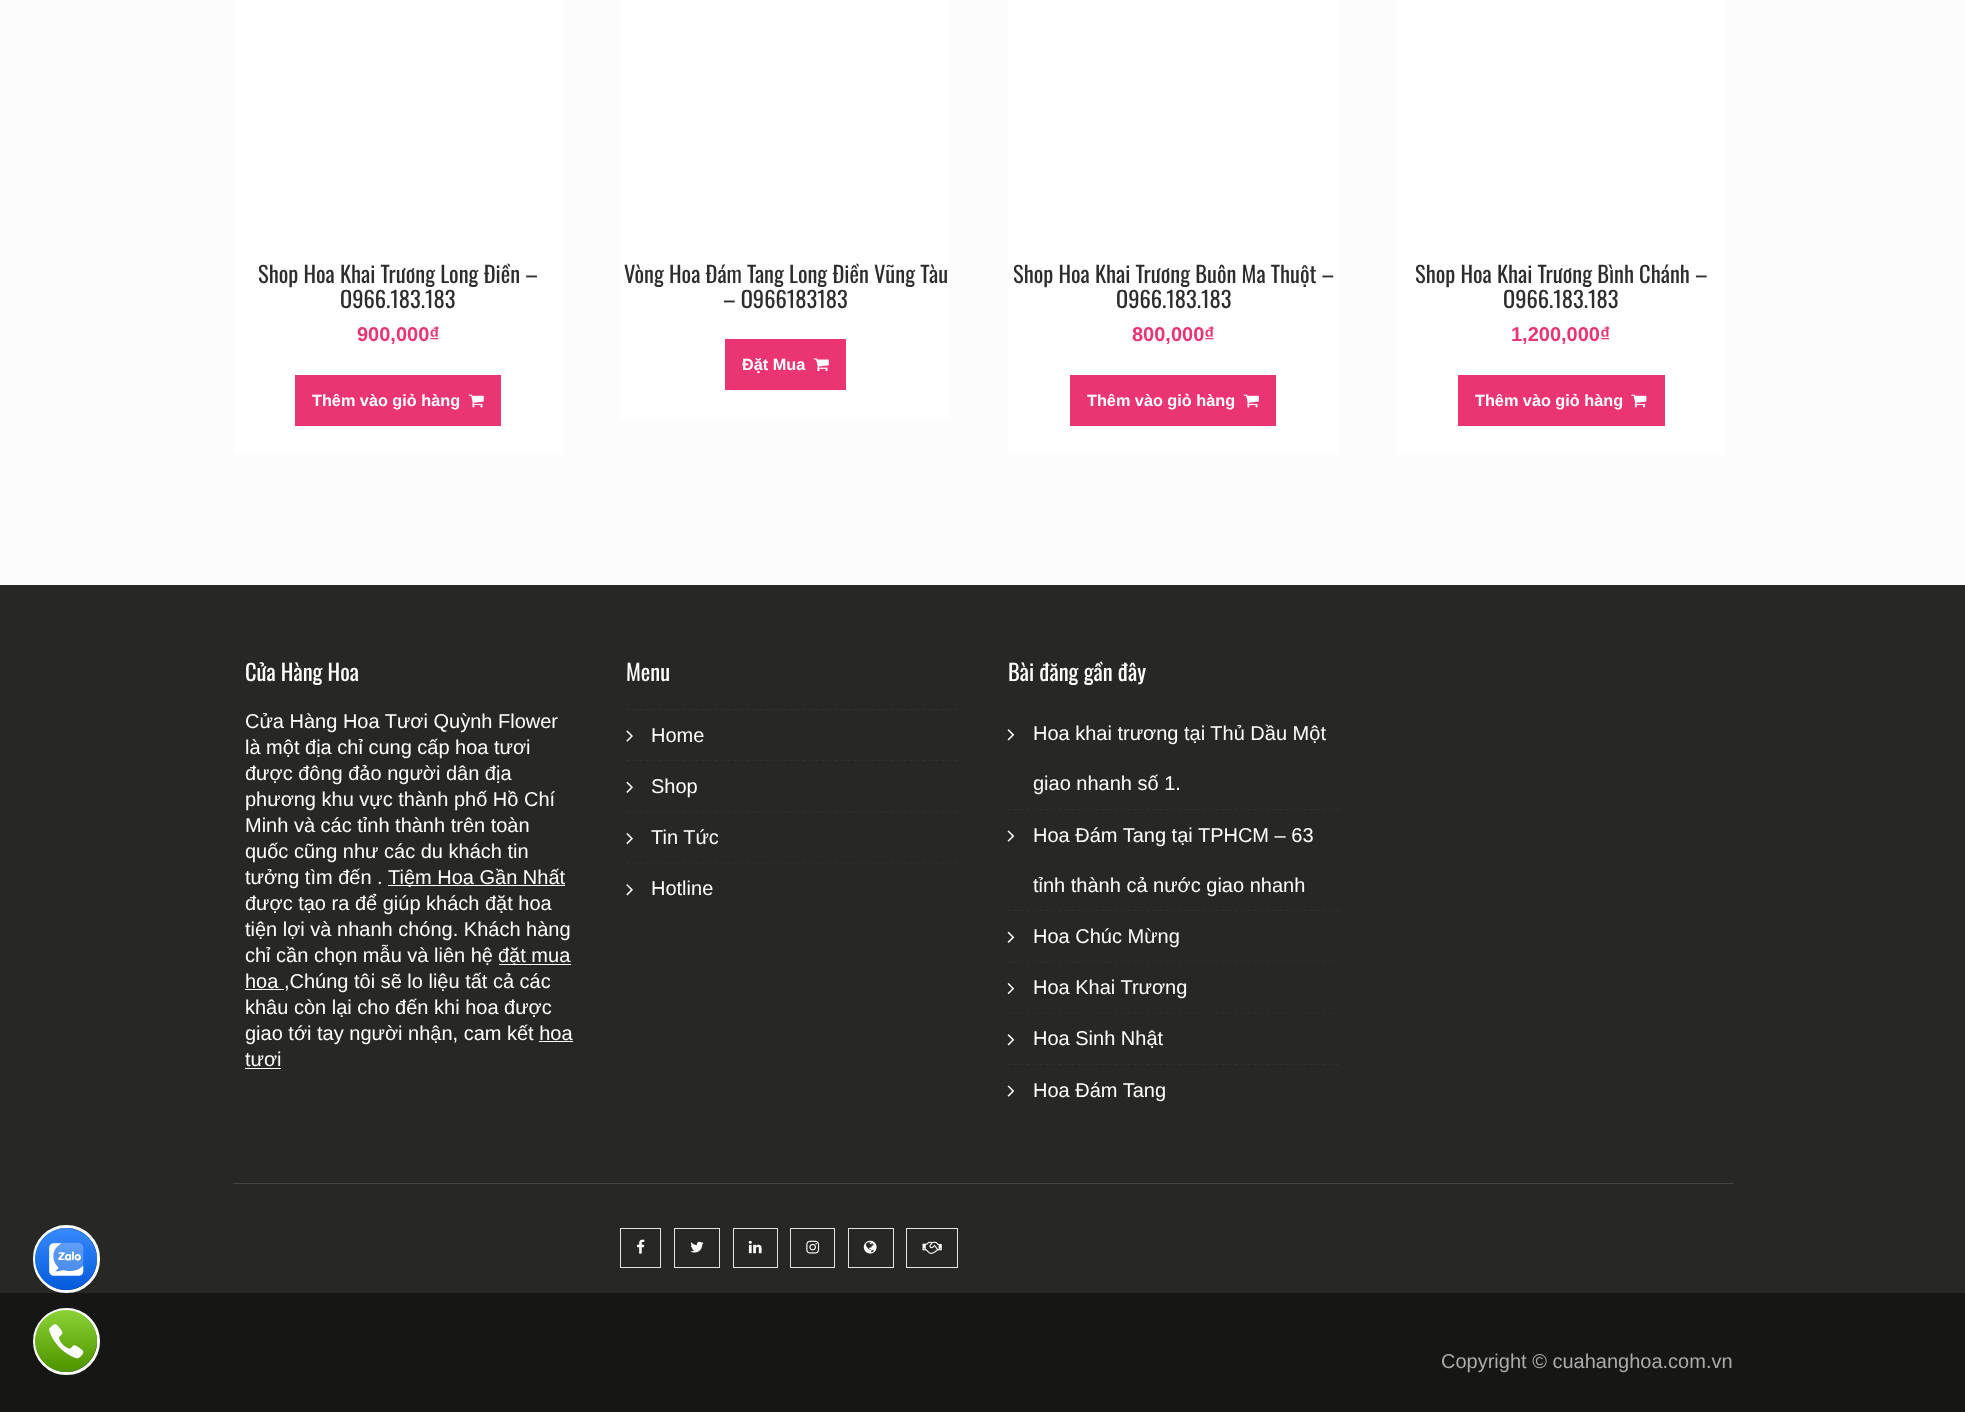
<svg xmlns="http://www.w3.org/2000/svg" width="1965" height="1412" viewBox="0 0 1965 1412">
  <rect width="100%" height="100%" fill="#fcfcfc"/>
  <rect x="0" y="585" width="1965" height="708" fill="#272823"/>
  <rect x="34.5" y="1226.5" width="64" height="65" rx="32" fill="none" stroke="#ffffff" stroke-width="3"/>
  <image x="35" y="1228" width="62" height="62" href="img1.png"/>
  <rect x="0" y="1293" width="1965" height="119" fill="#161614"/>
  <circle cx="66.5" cy="1341.5" r="32" fill="none" stroke="#ffffff" stroke-width="3"/>
  <image x="35" y="1310" width="62" height="62" href="img2.png"/>
  <rect x="233" y="0" width="331" height="455" fill="#ffffff"/>
  <text x="258" y="283" font-family="Oswald" font-size="22.5" fill="#2d2d2d">Shop Hoa Khai Trương Long Điền –</text>
  <text x="340" y="308" font-family="Oswald" font-size="22.5" fill="#2d2d2d">O966.183.183</text>
  <text x="357" y="341" font-family="Liberation Sans" font-size="20" font-weight="bold" fill="#ea3572">900,000₫</text>
  <rect x="295" y="375" width="206" height="51" fill="#ea3572"/>
  <text x="312" y="406" font-family="Liberation Sans" font-size="16.25" font-weight="bold" fill="#ffffff">Thêm vào giỏ hàng</text>
  <image x="468" y="394" width="16" height="14" href="img3.png"/>
  <rect x="620" y="0" width="331" height="419" fill="#ffffff"/>
  <text x="624" y="283" font-family="Oswald" font-size="22.5" fill="#2d2d2d">Vòng Hoa Đám Tang Long Điền Vũng Tàu</text>
  <text x="723" y="308" font-family="Oswald" font-size="22.5" fill="#2d2d2d">– O966183183</text>
  <rect x="725" y="339" width="121" height="51" fill="#ea3572"/>
  <text x="742" y="370" font-family="Liberation Sans" font-size="16.25" font-weight="bold" fill="#ffffff">Đặt Mua</text>
  <image x="813" y="358" width="16" height="14" href="img4.png"/>
  <rect x="1008" y="0" width="331" height="455" fill="#ffffff"/>
  <text x="1013" y="283" font-family="Oswald" font-size="22.5" fill="#2d2d2d">Shop Hoa Khai Trương Buôn Ma Thuột –</text>
  <text x="1116" y="308" font-family="Oswald" font-size="22.5" fill="#2d2d2d">O966.183.183</text>
  <text x="1132" y="341" font-family="Liberation Sans" font-size="20" font-weight="bold" fill="#ea3572">800,000₫</text>
  <rect x="1070" y="375" width="206" height="51" fill="#ea3572"/>
  <text x="1087" y="406" font-family="Liberation Sans" font-size="16.25" font-weight="bold" fill="#ffffff">Thêm vào giỏ hàng</text>
  <image x="1243" y="394" width="16" height="14" href="img3.png"/>
  <rect x="1396" y="0" width="330" height="455" fill="#ffffff"/>
  <text x="1415" y="283" font-family="Oswald" font-size="22.5" fill="#2d2d2d">Shop Hoa Khai Trương Bình Chánh –</text>
  <text x="1503" y="308" font-family="Oswald" font-size="22.5" fill="#2d2d2d">O966.183.183</text>
  <text x="1511" y="341" font-family="Liberation Sans" font-size="20" font-weight="bold" fill="#ea3572">1,200,000₫</text>
  <rect x="1458" y="375" width="207" height="51" fill="#ea3572"/>
  <text x="1475" y="406" font-family="Liberation Sans" font-size="16.25" font-weight="bold" fill="#ffffff">Thêm vào giỏ hàng</text>
  <image x="1631" y="394" width="16" height="14" href="img5.png"/>
  <rect x="233" y="1183" width="1500" height="1" fill="#444444"/>
  <text x="245" y="681" font-family="Oswald" font-size="22.5" fill="#ffffff">Cửa Hàng Hoa</text>
  <text x="245" y="728" font-family="Liberation Sans" font-size="20" fill="#ffffff">Cửa Hàng Hoa Tươi Quỳnh Flower</text>
  <text x="245" y="754" font-family="Liberation Sans" font-size="20" fill="#ffffff">là một địa chỉ cung cấp hoa tươi</text>
  <text x="245" y="780" font-family="Liberation Sans" font-size="20" fill="#ffffff">được đông đảo người dân địa</text>
  <text x="245" y="806" font-family="Liberation Sans" font-size="20" fill="#ffffff">phương khu vực thành phố Hồ Chí</text>
  <text x="245" y="832" font-family="Liberation Sans" font-size="20" fill="#ffffff">Minh và các tỉnh thành trên toàn</text>
  <text x="245" y="858" font-family="Liberation Sans" font-size="20" fill="#ffffff">quốc cũng như các du khách tin</text>
  <text x="245" y="884" font-family="Liberation Sans" font-size="20" fill="#ffffff">tưởng tìm đến .</text>
  <rect x="388" y="885" width="177" height="1" fill="#ffffff"/>
  <text x="388" y="884" font-family="Liberation Sans" font-size="20" fill="#ffffff">Tiệm Hoa Gần Nhất</text>
  <text x="245" y="910" font-family="Liberation Sans" font-size="20" fill="#ffffff">được tạo ra để giúp khách đặt hoa</text>
  <text x="245" y="936" font-family="Liberation Sans" font-size="20" fill="#ffffff">tiện lợi và nhanh chóng. Khách hàng</text>
  <text x="245" y="962" font-family="Liberation Sans" font-size="20" fill="#ffffff">chỉ cần chọn mẫu và liên hệ</text>
  <rect x="499" y="964" width="72" height="1" fill="#ffffff"/>
  <text x="498" y="962" font-family="Liberation Sans" font-size="20" fill="#ffffff">đặt mua</text>
  <rect x="245" y="989" width="39" height="1" fill="#ffffff"/>
  <text x="245" y="988" font-family="Liberation Sans" font-size="20" fill="#ffffff">hoa ,Chúng tôi sẽ lo liệu tất cả các</text>
  <text x="245" y="1014" font-family="Liberation Sans" font-size="20" fill="#ffffff">khâu còn lại cho đến khi hoa được</text>
  <text x="245" y="1040" font-family="Liberation Sans" font-size="20" fill="#ffffff">giao tới tay người nhận, cam kết hoa</text>
  <text x="245" y="1066" font-family="Liberation Sans" font-size="20" fill="#ffffff">tươi</text>
  <rect x="539" y="1041" width="34" height="1" fill="#ffffff"/>
  <rect x="245" y="1068" width="36" height="1" fill="#ffffff"/>
  <text x="626" y="681" font-family="Oswald" font-size="22.5" fill="#ffffff">Menu</text>
  <path d="M626 709.5H957.5" fill="none" stroke="#303030" stroke-width="1.2" stroke-dasharray="3.75 2.55"/>
  <image x="626" y="730" width="7" height="12" href="img6.png"/>
  <text x="651" y="742" font-family="Liberation Sans" font-size="20" fill="#ffffff">Home</text>
  <path d="M626 760.5H957.5" fill="none" stroke="#303030" stroke-width="1.2" stroke-dasharray="3.75 2.55"/>
  <image x="626" y="781" width="7" height="12" href="img7.png"/>
  <text x="651" y="793" font-family="Liberation Sans" font-size="20" fill="#ffffff">Shop</text>
  <path d="M626 812H957.5" fill="none" stroke="#303030" stroke-width="1.2" stroke-dasharray="3.75 2.55"/>
  <image x="626" y="833" width="7" height="12" href="img8.png"/>
  <text x="651" y="844" font-family="Liberation Sans" font-size="20" fill="#ffffff">Tin Tức</text>
  <path d="M626 863H957.5" fill="none" stroke="#303030" stroke-width="1.2" stroke-dasharray="3.75 2.55"/>
  <image x="626" y="884" width="7" height="12" href="img9.png"/>
  <text x="651" y="895" font-family="Liberation Sans" font-size="20" fill="#ffffff">Hotline</text>
  <text x="1008" y="681" font-family="Oswald" font-size="22.5" fill="#ffffff">Bài đăng gần đây</text>
  <image x="1007" y="729" width="8" height="12" href="img10.png"/>
  <text x="1033" y="740" font-family="Liberation Sans" font-size="20" fill="#ffffff">Hoa khai trương tại Thủ Dầu Một</text>
  <text x="1033" y="790" font-family="Liberation Sans" font-size="20" fill="#ffffff">giao nhanh số 1.</text>
  <path d="M1007.5 809.5H1339" fill="none" stroke="#303030" stroke-width="1.2" stroke-dasharray="3.75 2.55"/>
  <image x="1007" y="830" width="8" height="12" href="img11.png"/>
  <text x="1033" y="842" font-family="Liberation Sans" font-size="20" fill="#ffffff">Hoa Đám Tang tại TPHCM – 63</text>
  <text x="1033" y="892" font-family="Liberation Sans" font-size="20" fill="#ffffff">tỉnh thành cả nước giao nhanh</text>
  <path d="M1007.5 910.5H1339" fill="none" stroke="#303030" stroke-width="1.2" stroke-dasharray="3.75 2.55"/>
  <image x="1007" y="931" width="8" height="12" href="img12.png"/>
  <text x="1033" y="943" font-family="Liberation Sans" font-size="20" fill="#ffffff">Hoa Chúc Mừng</text>
  <path d="M1007.5 962H1339" fill="none" stroke="#303030" stroke-width="1.2" stroke-dasharray="3.75 2.55"/>
  <image x="1007" y="983" width="8" height="12" href="img13.png"/>
  <text x="1033" y="994" font-family="Liberation Sans" font-size="20" fill="#ffffff">Hoa Khai Trương</text>
  <path d="M1007.5 1013H1339" fill="none" stroke="#303030" stroke-width="1.2" stroke-dasharray="3.75 2.55"/>
  <image x="1007" y="1034" width="8" height="12" href="img10.png"/>
  <text x="1033" y="1045" font-family="Liberation Sans" font-size="20" fill="#ffffff">Hoa Sinh Nhật</text>
  <path d="M1007.5 1064.5H1339" fill="none" stroke="#303030" stroke-width="1.2" stroke-dasharray="3.75 2.55"/>
  <image x="1007" y="1085" width="8" height="12" href="img11.png"/>
  <text x="1033" y="1097" font-family="Liberation Sans" font-size="20" fill="#ffffff">Hoa Đám Tang</text>
  <rect x="620.5" y="1228.5" width="40" height="39" fill="none" stroke="#e2e2e4"/>
  <image x="637" y="1239" width="8" height="15" href="img14.png"/>
  <rect x="674.5" y="1228.5" width="45" height="39" fill="none" stroke="#e2e2e4"/>
  <image x="690" y="1241" width="14" height="12" href="img15.png"/>
  <rect x="733.5" y="1228.5" width="44" height="39" fill="none" stroke="#e2e2e4"/>
  <image x="748" y="1240" width="14" height="14" href="img16.png"/>
  <rect x="790.5" y="1228.5" width="44" height="39" fill="none" stroke="#e2e2e4"/>
  <image x="806" y="1240" width="14" height="14" href="img17.png"/>
  <rect x="848.5" y="1228.5" width="45" height="39" fill="none" stroke="#e2e2e4"/>
  <image x="863" y="1240" width="14" height="14" href="img18.png"/>
  <rect x="906.5" y="1228.5" width="51" height="39" fill="none" stroke="#e2e2e4"/>
  <image x="922" y="1241" width="20" height="13" href="img19.png"/>
  <text x="1441" y="1368" font-family="Liberation Sans" font-size="20" fill="#ababab">Copyright © cuahanghoa.com.vn</text>
</svg>
